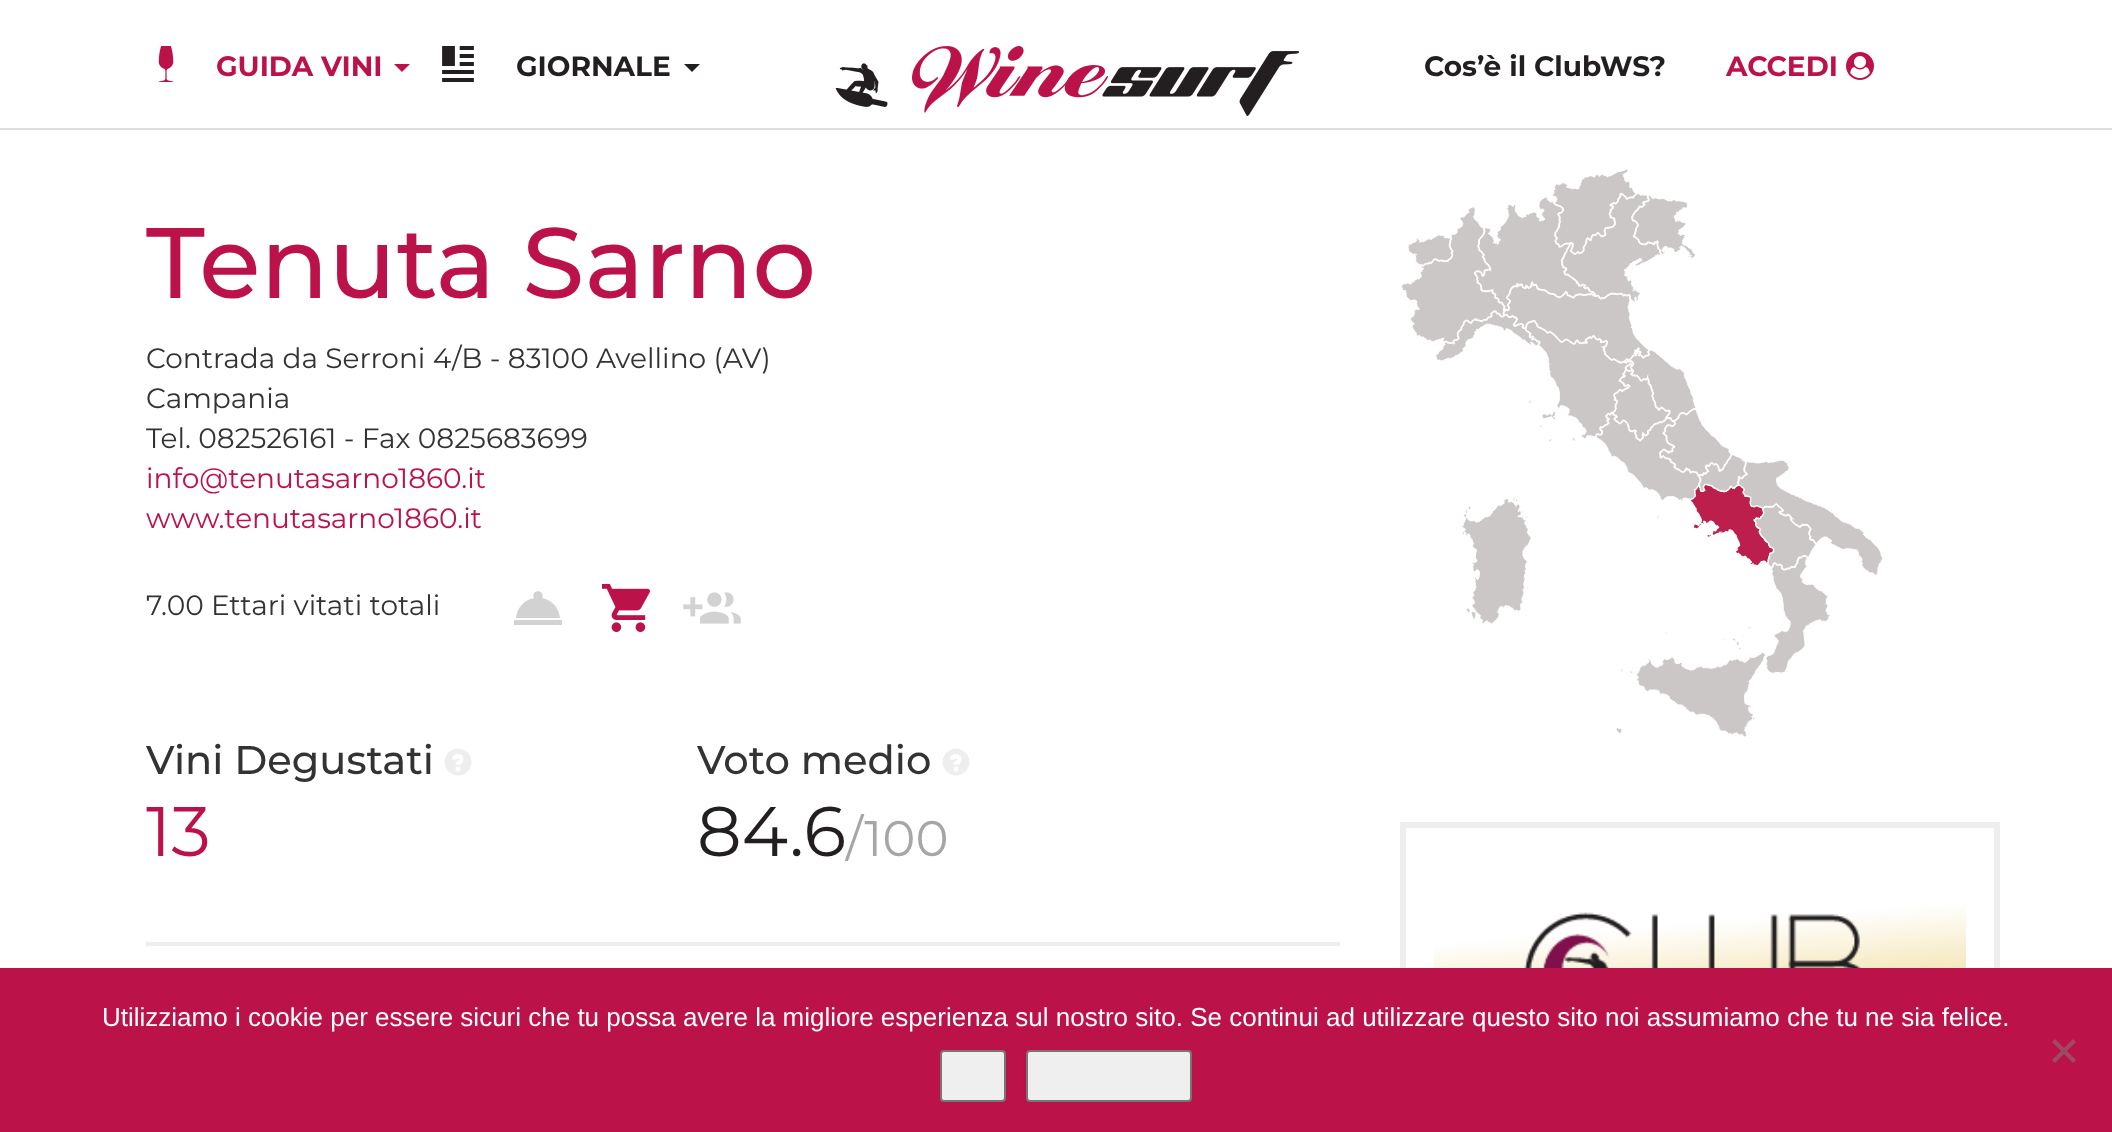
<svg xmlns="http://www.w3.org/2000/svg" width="2112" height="1132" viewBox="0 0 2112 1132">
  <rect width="100%" height="100%" fill="#ffffff"/>
  <rect x="0" y="128" width="2112" height="2" fill="#dddddd"/>
  <image x="158" y="46" width="16" height="36" href="img1.png"/>
  <text x="216" y="76" font-family="Montserrat" font-size="28" font-weight="bold" fill="#bc124a">GUIDA VINI</text>
  <path d="M394 64H410L402 72Z" fill="#bc124a"/>
  <image x="442" y="46" width="32" height="36" href="img2.png"/>
  <text x="516" y="76" font-family="Montserrat" font-size="28" font-weight="bold" fill="#231f20">GIORNALE</text>
  <path d="M684 64H700L692 72Z" fill="#231f20"/>
  <image x="835" y="63" width="53" height="44" href="img3.png"/>
  <image x="912" y="46" width="388" height="70" href="img4.png"/>
  <text x="1424" y="76" font-family="Montserrat" font-size="28" font-weight="bold" fill="#231f20">Cos’è il ClubWS?</text>
  <text x="1726" y="76" font-family="Montserrat" font-size="28" font-weight="bold" fill="#bc124a">ACCEDI</text>
  <image x="1846" y="52" width="28" height="28" href="img5.png"/>
  <text x="146" y="298" font-family="Montserrat" font-size="100" font-weight="500" fill="#bc124a">Tenuta Sarno</text>
  <text x="146" y="368" font-family="Montserrat" font-size="28" fill="#333333">Contrada da Serroni 4/B - 83100 Avellino (AV)</text>
  <text x="146" y="408" font-family="Montserrat" font-size="28" fill="#333333">Campania</text>
  <text x="146" y="448" font-family="Montserrat" font-size="28" fill="#333333">Tel. 082526161 - Fax 0825683699</text>
  <text x="146" y="488" font-family="Montserrat" font-size="28" fill="#bc124a">info@tenutasarno1860.it</text>
  <text x="146" y="528" font-family="Montserrat" font-size="28" fill="#bc124a">www.tenutasarno1860.it</text>
  <text x="146" y="615" font-family="Montserrat" font-size="28" fill="#333333">7.00 Ettari vitati totali</text>
  <path d="M514 620H562V625H514ZM542 598C546 589 530 589 534 598C524 600 517 608 516 618H560C559 608 552 600 542 598Z" fill="#d3d2d2"/>
  <image x="602" y="584" width="48" height="48" href="img6.png"/>
  <image x="683" y="592" width="58" height="32" href="img7.png"/>
  <text x="146" y="774" font-family="Montserrat" font-size="40" font-weight="500" fill="#333333">Vini Degustati</text>
  <image x="444" y="748" width="28" height="28" href="img8.png"/>
  <text x="146" y="856" font-family="Montserrat" font-size="70" fill="#bc124a">13</text>
  <text x="697" y="774" font-family="Montserrat" font-size="40" font-weight="500" fill="#333333">Voto medio</text>
  <image x="942" y="748" width="28" height="28" href="img8.png"/>
  <text x="697" y="856" font-family="Montserrat" font-size="70" fill="#231f20">84.6</text>
  <text x="846" y="856" font-family="Montserrat" font-size="50" fill="#a7a5a6">/100</text>
  <rect x="146" y="942" width="1194" height="4" fill="#eeeeee"/>
  <image x="1401" y="169" width="482" height="568" href="img9.png"/>
  <rect x="1403" y="825" width="594" height="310" fill="none" stroke="#eeeeee" stroke-width="6"/>
  <image x="1434" y="905" width="532" height="63" href="img10.png"/>
  <rect x="0" y="968" width="2112" height="164" fill="#bc124a"/>
  <text x="102" y="1026" font-family="Liberation Sans" font-size="26" fill="#ffffff">Utilizziamo i cookie per essere sicuri che tu possa avere la migliore esperienza sul nostro sito. Se continui ad utilizzare questo sito noi assumiamo che tu ne sia felice.</text>
  <rect x="941" y="1051" width="64" height="50" rx="3" fill="#efefef" stroke="#767676" stroke-width="2"/>
  <rect x="1027" y="1051" width="164" height="50" rx="3" fill="#efefef" stroke="#767676" stroke-width="2"/>
  <path d="M2073 1039L2076 1042L2055 1063L2052 1060Z" fill="#9e4965"/>
  <path d="M2052 1042L2055 1039L2076 1060L2073 1063Z" fill="#9e4965"/>
</svg>
